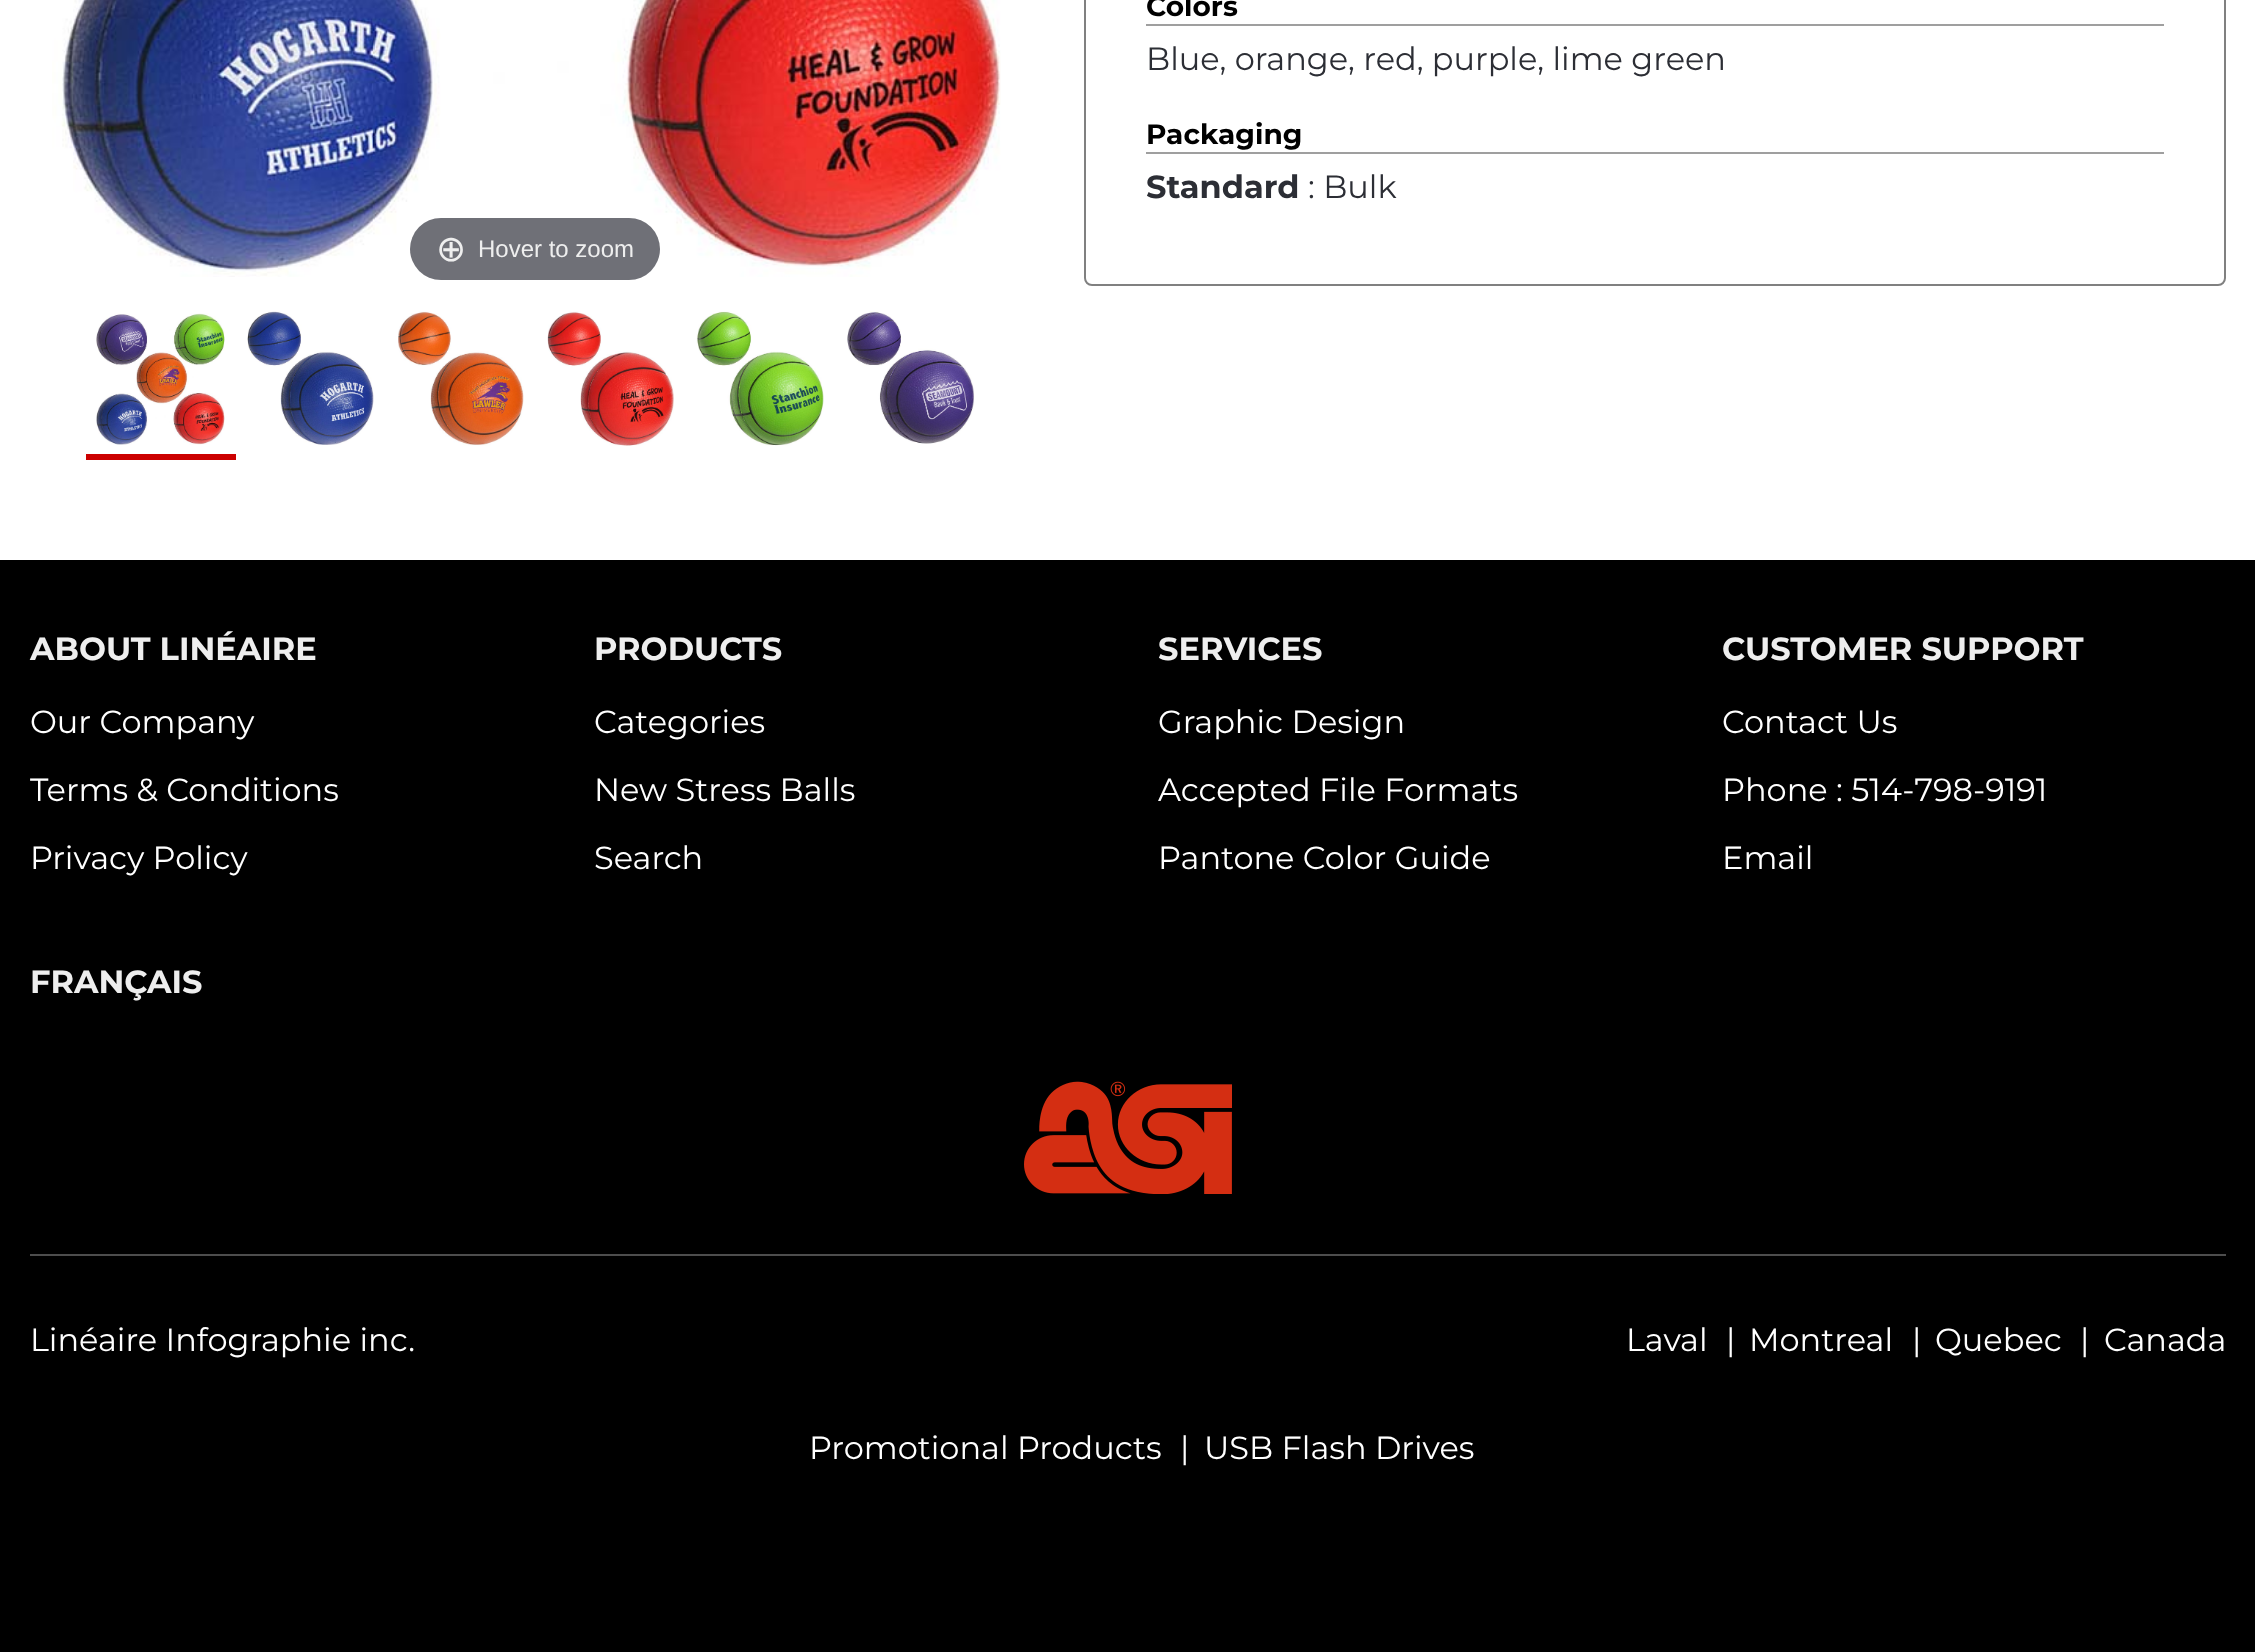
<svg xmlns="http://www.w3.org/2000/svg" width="2255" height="1652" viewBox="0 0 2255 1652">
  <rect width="100%" height="100%" fill="#ffffff"/>
  <path d="M1085-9H2218C2222-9 2225-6 2225-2V278C2225 282 2222 285 2218 285H1092C1088 285 1085 282 1085 278Z" fill="none" stroke="#808080" stroke-width="2"/>
  <rect x="1146" y="24" width="1018" height="2" fill="#9f9f9f"/>
  <text x="1146" y="16" font-family="Montserrat" font-size="28" font-weight="bold" fill="#000000">Colors</text>
  <text x="1146" y="70" font-family="Montserrat" font-size="32" fill="#2c2e35">Blue, orange, red, purple, lime green</text>
  <rect x="1146" y="152" width="1018" height="2" fill="#9f9f9f"/>
  <text x="1146" y="144" font-family="Montserrat" font-size="28" font-weight="bold" fill="#000000">Packaging</text>
  <text x="1146" y="198" font-family="Montserrat" font-size="32" font-weight="bold" fill="#2c2e35">Standard</text>
  <text x="1308" y="198" font-family="Montserrat" font-size="32" fill="#2c2e35">: Bulk</text>
  <image x="52" y="0" width="949" height="277" href="img1.png"/>
  <rect x="410" y="218" width="250" height="62" rx="31" fill="#6f7077"/>
  <text x="436" y="261" font-family="DejaVu Sans" font-size="36" fill="#eeeeee">⊕</text>
  <text x="478" y="257" font-family="Liberation Sans" font-size="24" fill="#eeeeee">Hover to zoom</text>
  <image x="96" y="313" width="129" height="132" href="img2.png"/>
  <rect x="86" y="454" width="150" height="6" fill="#cc0000"/>
  <image x="247" y="311" width="127" height="134" href="img3.png"/>
  <image x="398" y="311" width="126" height="135" href="img4.png"/>
  <image x="547" y="311" width="127" height="135" href="img5.png"/>
  <image x="696" y="311" width="128" height="135" href="img6.png"/>
  <image x="847" y="311" width="128" height="133" href="img7.png"/>
  <rect x="0" y="560" width="2255" height="1092" fill="#000000"/>
  <text x="30" y="660" font-family="Montserrat" font-size="32" font-weight="bold" fill="#eeeeee">ABOUT LINÉAIRE</text>
  <text x="30" y="733" font-family="Montserrat" font-size="32" fill="#ffffff">Our Company</text>
  <text x="30" y="801" font-family="Montserrat" font-size="32" fill="#ffffff">Terms &amp; Conditions</text>
  <text x="30" y="869" font-family="Montserrat" font-size="32" fill="#ffffff">Privacy Policy</text>
  <text x="594" y="660" font-family="Montserrat" font-size="32" font-weight="bold" fill="#eeeeee">PRODUCTS</text>
  <text x="594" y="733" font-family="Montserrat" font-size="32" fill="#ffffff">Categories</text>
  <text x="594" y="801" font-family="Montserrat" font-size="32" fill="#ffffff">New Stress Balls</text>
  <text x="594" y="869" font-family="Montserrat" font-size="32" fill="#ffffff">Search</text>
  <text x="1158" y="660" font-family="Montserrat" font-size="32" font-weight="bold" fill="#eeeeee">SERVICES</text>
  <text x="1158" y="733" font-family="Montserrat" font-size="32" fill="#ffffff">Graphic Design</text>
  <text x="1158" y="801" font-family="Montserrat" font-size="32" fill="#ffffff">Accepted File Formats</text>
  <text x="1158" y="869" font-family="Montserrat" font-size="32" fill="#ffffff">Pantone Color Guide</text>
  <text x="1722" y="660" font-family="Montserrat" font-size="32" font-weight="bold" fill="#eeeeee">CUSTOMER SUPPORT</text>
  <text x="1722" y="733" font-family="Montserrat" font-size="32" fill="#ffffff">Contact Us</text>
  <text x="1722" y="801" font-family="Montserrat" font-size="32" fill="#ffffff">Phone : 514-798-9191</text>
  <text x="1722" y="869" font-family="Montserrat" font-size="32" fill="#ffffff">Email</text>
  <text x="30" y="993" font-family="Montserrat" font-size="32" font-weight="bold" fill="#eeeeee">FRANÇAIS</text>
  <image x="1024" y="1081" width="208" height="113" href="img8.png"/>
  <rect x="30" y="1254" width="2196" height="2" fill="#4d4d4d"/>
  <text x="30" y="1351" font-family="Montserrat" font-size="32" fill="#ffffff">Linéaire Infographie inc.</text>
  <text x="1626" y="1351" font-family="Montserrat" font-size="32" fill="#ffffff">Laval</text>
  <text x="1726" y="1351" font-family="Montserrat" font-size="32" fill="#ffffff">|</text>
  <text x="1749" y="1351" font-family="Montserrat" font-size="32" fill="#ffffff">Montreal</text>
  <text x="1912" y="1351" font-family="Montserrat" font-size="32" fill="#ffffff">|</text>
  <text x="1935" y="1351" font-family="Montserrat" font-size="32" fill="#ffffff">Quebec</text>
  <text x="2080" y="1351" font-family="Montserrat" font-size="32" fill="#ffffff">|</text>
  <text x="2104" y="1351" font-family="Montserrat" font-size="32" fill="#ffffff">Canada</text>
  <text x="809" y="1459" font-family="Montserrat" font-size="32" fill="#ffffff">Promotional Products</text>
  <text x="1180" y="1459" font-family="Montserrat" font-size="32" fill="#ffffff">|</text>
  <text x="1204" y="1459" font-family="Montserrat" font-size="32" fill="#ffffff">USB Flash Drives</text>
</svg>
